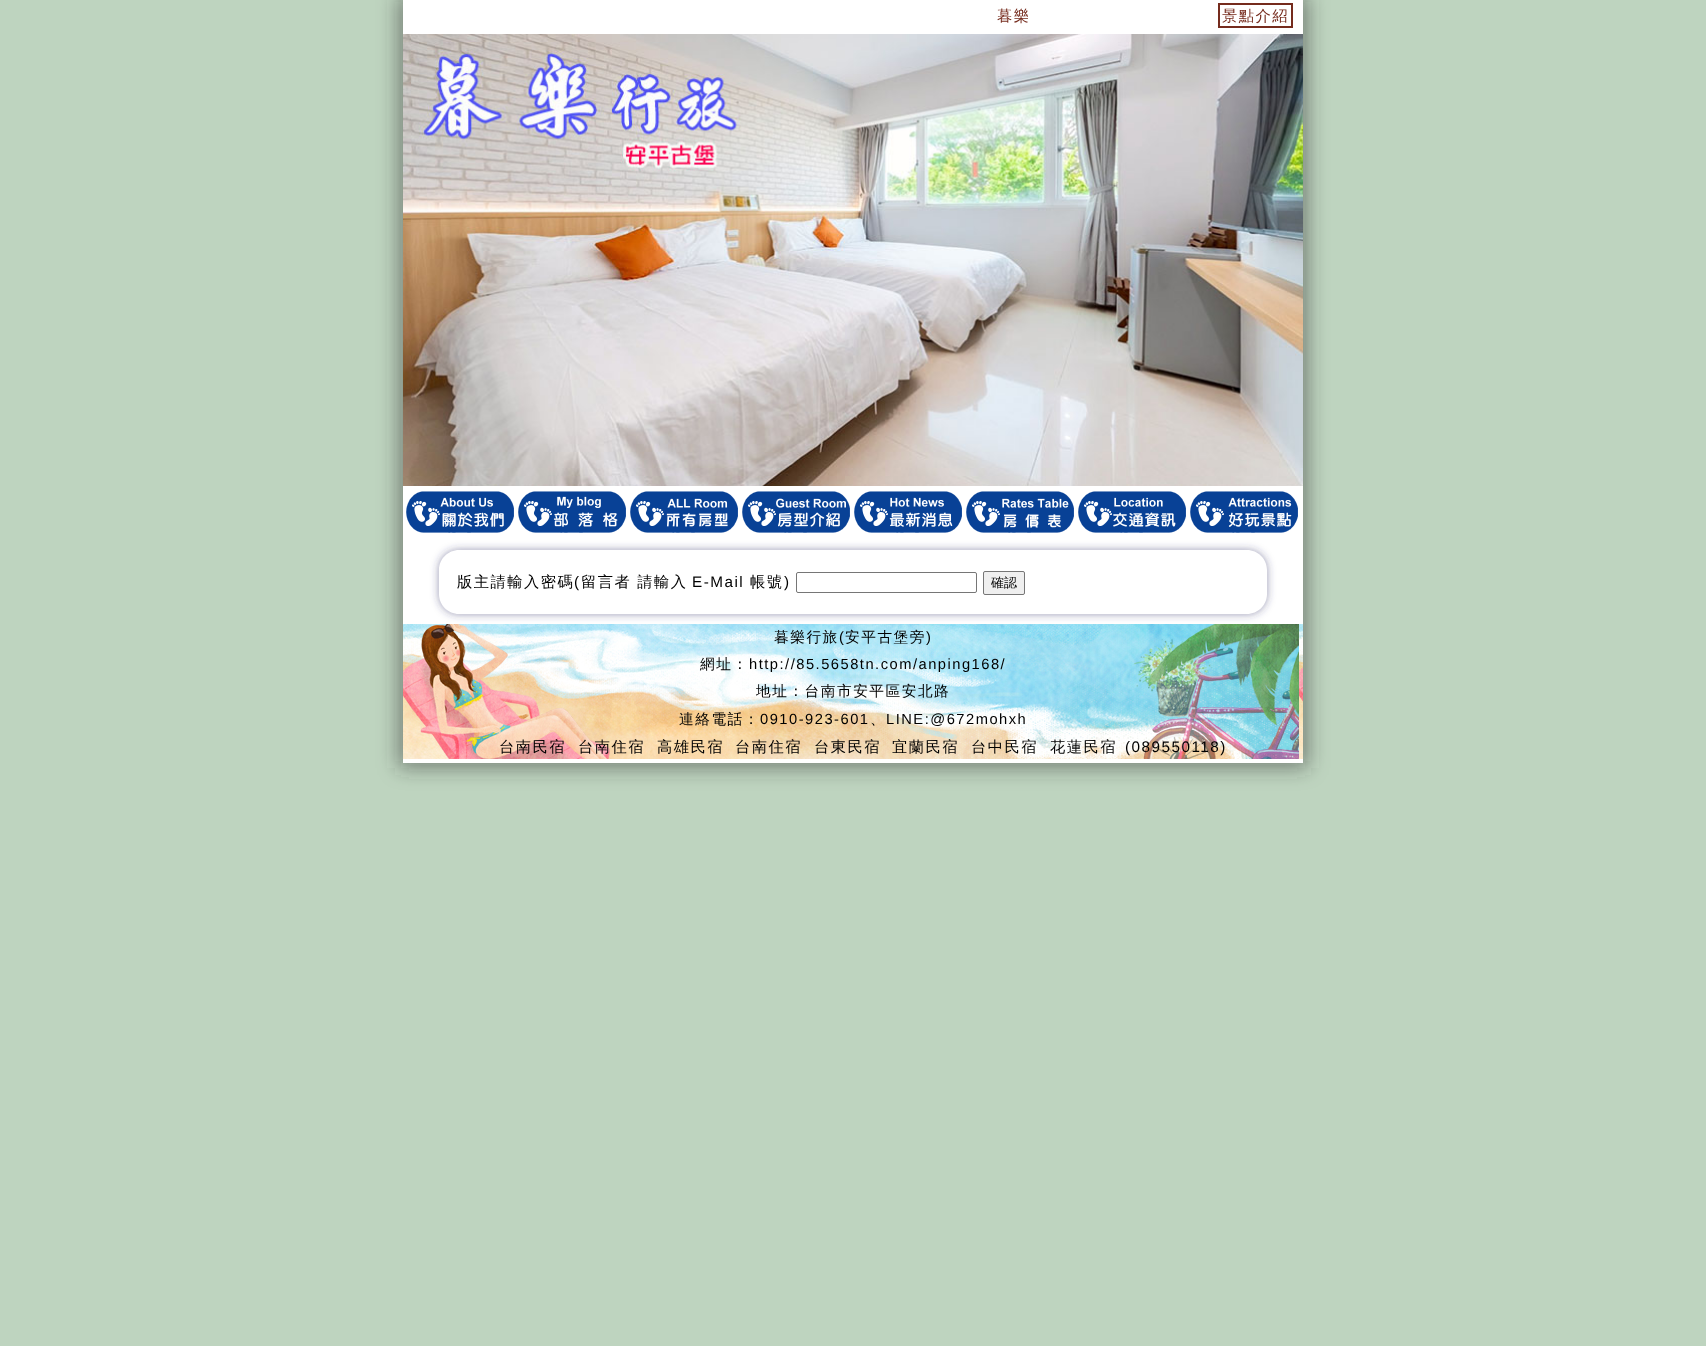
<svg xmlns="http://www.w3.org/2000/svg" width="1706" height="1346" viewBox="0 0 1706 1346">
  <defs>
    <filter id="blur1" x="-50%" y="-200%" width="200%" height="500%"><feGaussianBlur stdDeviation="10"/></filter>
    <clipPath id="clip1"><path d="M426 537H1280V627H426ZM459 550H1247C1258 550 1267 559 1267 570V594C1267 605 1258 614 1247 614H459C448 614 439 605 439 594V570C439 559 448 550 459 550Z" clip-rule="evenodd"/></clipPath>
    <filter id="blur2" x="-50%" y="-200%" width="200%" height="500%"><feGaussianBlur stdDeviation="4"/></filter>
  </defs>
  <rect width="100%" height="100%" fill="#bed4bf"/>
  <rect x="398" y="-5" width="910" height="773" fill="#333333" fill-opacity="0.5" filter="url(#blur1)"/>
  <rect x="403" y="0" width="900" height="763" fill="#ffffff"/>
  <text x="997" y="21" font-family="WenQuanYi Zen Hei" font-size="15.25" font-weight="500" letter-spacing="1.5" fill="#752b1d">暮樂</text>
  <rect x="1219" y="4" width="73" height="23" fill="none" stroke="#752b1d" stroke-width="2"/>
  <text x="1222" y="21" font-family="WenQuanYi Zen Hei" font-size="15.25" font-weight="500" letter-spacing="1.5" fill="#752b1d">景點介紹</text>
  <image x="403" y="34" width="900" height="452" href="img1.png"/>
  <image x="406" y="491" width="108" height="42" href="img2.png"/>
  <image x="518" y="491" width="108" height="42" href="img3.png"/>
  <image x="630" y="491" width="108" height="42" href="img4.png"/>
  <image x="742" y="491" width="108" height="42" href="img5.png"/>
  <image x="854" y="491" width="108" height="42" href="img6.png"/>
  <image x="966" y="491" width="108" height="42" href="img7.png"/>
  <image x="1078" y="491" width="108" height="42" href="img8.png"/>
  <image x="1190" y="491" width="108" height="42" href="img9.png"/>
  <image x="403" y="624" width="900" height="135" href="img10.png"/>
  <g clip-path="url(#clip1)">
    <rect x="439" y="550" width="828" height="64" rx="20" fill="#333366" fill-opacity="0.5" filter="url(#blur2)"/>
  </g>
  <text x="457" y="587" font-family="WenQuanYi Zen Hei" font-size="15.25" font-weight="500" letter-spacing="1.5" fill="#000000">版主請輸入密碼</text>
  <text x="574" y="587" font-family="Liberation Sans" font-size="15.25" letter-spacing="1.5" fill="#000000">(</text>
  <text x="581" y="587" font-family="WenQuanYi Zen Hei" font-size="15.25" font-weight="500" letter-spacing="1.5" fill="#000000">留言者 請輸入</text>
  <text x="692" y="587" font-family="Liberation Sans" font-size="15.25" letter-spacing="1.5" fill="#000000">E-Mail</text>
  <text x="750" y="587" font-family="WenQuanYi Zen Hei" font-size="15.25" font-weight="500" letter-spacing="1.5" fill="#000000">帳號</text>
  <text x="784" y="587" font-family="Liberation Sans" font-size="15.25" letter-spacing="1.5" fill="#000000">)</text>
  <rect x="796.5" y="572.5" width="180" height="20" rx="1.5" fill="none" stroke="#767676"/>
  <rect x="983.5" y="571.5" width="41" height="23" rx="1.5" fill="#efefef" stroke="#767676"/>
  <text x="991" y="587" font-family="WenQuanYi Zen Hei" font-size="13" font-weight="500" fill="#000000">確認</text>
  <text x="774" y="642" font-family="WenQuanYi Zen Hei" font-size="14.7" font-weight="500" letter-spacing="1.5" fill="#000000">暮樂行旅</text>
  <text x="839" y="642" font-family="Liberation Sans" font-size="14.7" letter-spacing="1.5" fill="#000000">(</text>
  <text x="845" y="642" font-family="WenQuanYi Zen Hei" font-size="14.7" font-weight="500" letter-spacing="1.5" fill="#000000">安平古堡旁</text>
  <text x="926" y="642" font-family="Liberation Sans" font-size="14.7" letter-spacing="1.5" fill="#000000">)</text>
  <text x="700" y="669" font-family="WenQuanYi Zen Hei" font-size="14.7" font-weight="500" letter-spacing="1.5" fill="#000000">網址：</text>
  <text x="749" y="669" font-family="Liberation Sans" font-size="14.7" letter-spacing="1.5" fill="#000000">http://85.5658tn.com/anping168/</text>
  <text x="756" y="696" font-family="WenQuanYi Zen Hei" font-size="14.7" font-weight="500" letter-spacing="1.5" fill="#000000">地址：台南市安平區安北路</text>
  <text x="679" y="724" font-family="WenQuanYi Zen Hei" font-size="14.7" font-weight="500" letter-spacing="1.5" fill="#000000">連絡電話：</text>
  <text x="760" y="724" font-family="Liberation Sans" font-size="14.7" letter-spacing="1.5" fill="#000000">0910-923-601</text>
  <text x="870" y="724" font-family="WenQuanYi Zen Hei" font-size="14.7" font-weight="500" letter-spacing="1.5" fill="#000000">、</text>
  <text x="886" y="724" font-family="Liberation Sans" font-size="14.7" letter-spacing="1.5" fill="#000000">LINE:@672mohxh</text>
  <text x="499" y="752" font-family="WenQuanYi Zen Hei" font-size="15.25" font-weight="500" letter-spacing="1.5" fill="#000000">台南民宿</text>
  <text x="578" y="752" font-family="WenQuanYi Zen Hei" font-size="15.25" font-weight="500" letter-spacing="1.5" fill="#000000">台南住宿</text>
  <text x="657" y="752" font-family="WenQuanYi Zen Hei" font-size="15.25" font-weight="500" letter-spacing="1.5" fill="#000000">高雄民宿</text>
  <text x="735" y="752" font-family="WenQuanYi Zen Hei" font-size="15.25" font-weight="500" letter-spacing="1.5" fill="#000000">台南住宿</text>
  <text x="814" y="752" font-family="WenQuanYi Zen Hei" font-size="15.25" font-weight="500" letter-spacing="1.5" fill="#000000">台東民宿</text>
  <text x="892" y="752" font-family="WenQuanYi Zen Hei" font-size="15.25" font-weight="500" letter-spacing="1.5" fill="#000000">宜蘭民宿</text>
  <text x="971" y="752" font-family="WenQuanYi Zen Hei" font-size="15.25" font-weight="500" letter-spacing="1.5" fill="#000000">台中民宿</text>
  <text x="1050" y="752" font-family="WenQuanYi Zen Hei" font-size="15.25" font-weight="500" letter-spacing="1.5" fill="#000000">花蓮民宿</text>
  <text x="1125" y="752" font-family="Liberation Sans" font-size="15.25" letter-spacing="1.5" fill="#000000">(089550118)</text>
</svg>
